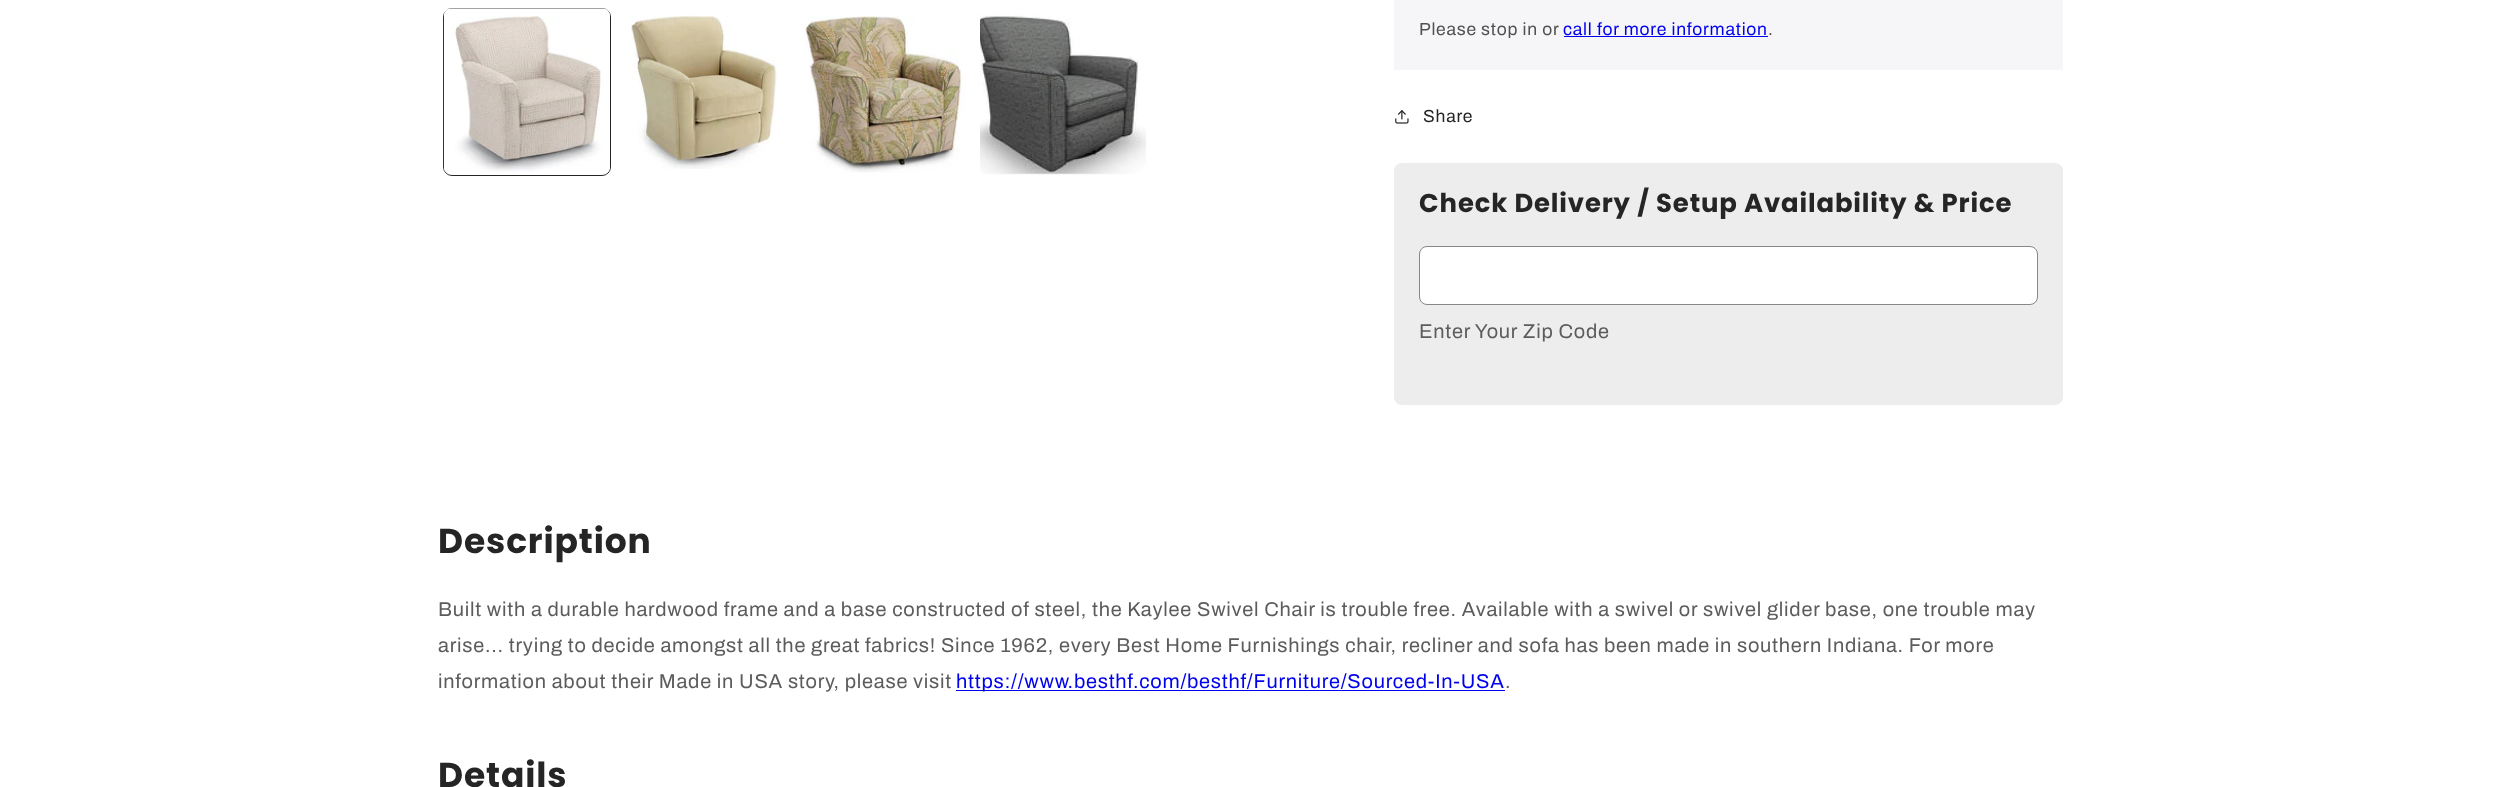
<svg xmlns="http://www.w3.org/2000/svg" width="2499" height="787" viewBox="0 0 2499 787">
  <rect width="100%" height="100%" fill="#ffffff"/>
  <rect x="443.5" y="8.5" width="167" height="167" rx="8.5" fill="none" stroke="#252525"/>
  <image x="443" y="8" width="167" height="167" href="img1.png"/>
  <image x="631" y="15" width="147" height="154" href="img2.png"/>
  <image x="802" y="15" width="162" height="158" href="img3.png"/>
  <image x="980" y="13" width="166" height="162" href="img4.png"/>
  <rect x="1394" y="0" width="669" height="70" fill="#f6f5f8"/>
  <text x="1419" y="35" font-family="Archivo" font-size="17.5" letter-spacing="0.75" fill="#515151">Please stop in or</text>
  <text x="1563" y="35" font-family="Archivo" font-size="17.5" letter-spacing="0.75" fill="#0000ee">call for more information</text>
  <rect x="1564" y="36" width="204" height="1" fill="#0000ee"/>
  <text x="1768" y="35" font-family="Archivo" font-size="17.5" letter-spacing="0.75" fill="#515151">.</text>
  <image x="1395" y="110" width="14" height="14" href="img5.png"/>
  <text x="1423" y="122" font-family="Archivo" font-size="17.5" letter-spacing="0.75" fill="#252525">Share</text>
  <rect x="1394" y="163" width="669" height="242" rx="8" fill="#ededed"/>
  <text x="1419" y="212" font-family="Poppins" font-size="25.9" font-weight="bold" letter-spacing="0.85" fill="#252525">Check Delivery / Setup Availability &amp; Price</text>
  <rect x="1419.5" y="246.5" width="618" height="58" rx="7.5" fill="#ffffff" stroke="#878787"/>
  <text x="1419" y="338" font-family="Archivo" font-size="20" letter-spacing="0.75" fill="#5c5c5c">Enter Your Zip Code</text>
  <text x="438" y="553" font-family="Poppins" font-size="34.5" font-weight="bold" letter-spacing="0.85" fill="#252525">Description</text>
  <text x="438" y="616" font-family="Archivo" font-size="20" letter-spacing="0.75" fill="#5c5c5c">Built with a durable hardwood frame and a base constructed of steel, the Kaylee Swivel Chair is trouble free. Available with a swivel or swivel glider base, one trouble may</text>
  <text x="438" y="652" font-family="Archivo" font-size="20" letter-spacing="0.75" fill="#5c5c5c">arise... trying to decide amongst all the great fabrics! Since 1962, every Best Home Furnishings chair, recliner and sofa has been made in southern Indiana. For more</text>
  <text x="438" y="688" font-family="Archivo" font-size="20" letter-spacing="0.75" fill="#5c5c5c">information about their Made in USA story, please visit</text>
  <rect x="956" y="690" width="549" height="1" fill="#0000ee"/>
  <text x="956" y="688" font-family="Archivo" font-size="20" letter-spacing="0.75" fill="#0000ee">https://www.besthf.com/besthf/Furniture/Sourced-In-USA</text>
  <text x="1505" y="688" font-family="Archivo" font-size="20" letter-spacing="0.75" fill="#5c5c5c">.</text>
  <text x="438" y="787" font-family="Poppins" font-size="34.5" font-weight="bold" letter-spacing="0.85" fill="#252525">Details</text>
</svg>
